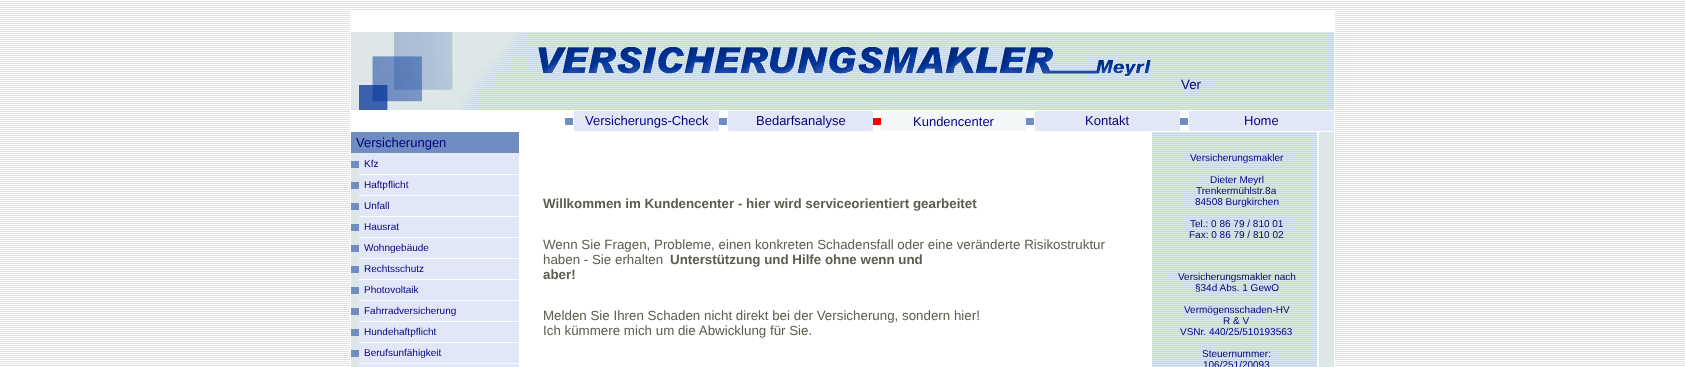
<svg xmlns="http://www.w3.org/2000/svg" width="1685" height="367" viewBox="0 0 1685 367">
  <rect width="100%" height="100%" fill="#ffffff"/>
  <image x="0" y="1" width="1685" height="365" href="img1.png"/>
  <rect x="350" y="11" width="985" height="355" fill="#ffffff"/>
  <image x="351" y="32" width="983" height="78" href="img2.png"/>
  <image x="538" y="47" width="613" height="30" href="img3.png"/>
  <text x="1181" y="89" font-family="Liberation Sans" font-size="13.35" fill="#000080">Ver</text>
  <rect x="565" y="118" width="8" height="7" fill="#6f8dc0"/>
  <rect x="574" y="111" width="145" height="20" fill="#e1e7f7"/>
  <text x="585" y="125" font-family="Liberation Sans" font-size="13" fill="#000080">Versicherungs-Check</text>
  <rect x="719" y="118" width="8" height="7" fill="#6f8dc0"/>
  <rect x="728" y="111" width="145" height="20" fill="#e1e7f7"/>
  <text x="756" y="125" font-family="Liberation Sans" font-size="13" fill="#000080">Bedarfsanalyse</text>
  <rect x="873" y="118" width="8" height="7" fill="#ff0000"/>
  <rect x="881" y="111" width="145" height="20" fill="#f4f7f7"/>
  <text x="913" y="126" font-family="Liberation Sans" font-size="13" fill="#000080">Kundencenter</text>
  <rect x="1026" y="118" width="8" height="7" fill="#6f8dc0"/>
  <rect x="1035" y="111" width="145" height="20" fill="#e1e7f7"/>
  <text x="1085" y="125" font-family="Liberation Sans" font-size="13" fill="#000080">Kontakt</text>
  <rect x="1180" y="118" width="8" height="7" fill="#6f8dc0"/>
  <rect x="1189" y="111" width="145" height="20" fill="#e1e7f7"/>
  <text x="1244" y="125" font-family="Liberation Sans" font-size="13" fill="#000080">Home</text>
  <rect x="351" y="154" width="8" height="213" fill="#dee7e7"/>
  <rect x="351" y="132" width="168" height="21" fill="#6f8dc0"/>
  <rect x="351" y="153" width="168" height="1" fill="#eaeaea"/>
  <text x="356" y="147" font-family="Liberation Sans" font-size="13" fill="#000080">Versicherungen</text>
  <rect x="351" y="161" width="8" height="7" fill="#6f8dc0"/>
  <rect x="359" y="154" width="160" height="20" fill="#e1e7f7"/>
  <text x="364" y="167" font-family="Liberation Sans" font-size="10" fill="#000080">Kfz</text>
  <rect x="351" y="182" width="8" height="7" fill="#6f8dc0"/>
  <rect x="359" y="175" width="160" height="20" fill="#e1e7f7"/>
  <text x="364" y="188" font-family="Liberation Sans" font-size="10" fill="#000080">Haftpflicht</text>
  <rect x="351" y="203" width="8" height="7" fill="#6f8dc0"/>
  <rect x="359" y="196" width="160" height="20" fill="#e1e7f7"/>
  <text x="364" y="209" font-family="Liberation Sans" font-size="10" fill="#000080">Unfall</text>
  <rect x="351" y="224" width="8" height="7" fill="#6f8dc0"/>
  <rect x="359" y="217" width="160" height="20" fill="#e1e7f7"/>
  <text x="364" y="230" font-family="Liberation Sans" font-size="10" fill="#000080">Hausrat</text>
  <rect x="351" y="245" width="8" height="7" fill="#6f8dc0"/>
  <rect x="359" y="238" width="160" height="20" fill="#e1e7f7"/>
  <text x="364" y="251" font-family="Liberation Sans" font-size="10" fill="#000080">Wohngebäude</text>
  <rect x="351" y="266" width="8" height="7" fill="#6f8dc0"/>
  <rect x="359" y="259" width="160" height="20" fill="#e1e7f7"/>
  <text x="364" y="272" font-family="Liberation Sans" font-size="10" fill="#000080">Rechtsschutz</text>
  <rect x="351" y="287" width="8" height="7" fill="#6f8dc0"/>
  <rect x="359" y="280" width="160" height="20" fill="#e1e7f7"/>
  <text x="364" y="293" font-family="Liberation Sans" font-size="10" fill="#000080">Photovoltaik</text>
  <rect x="351" y="308" width="8" height="7" fill="#6f8dc0"/>
  <rect x="359" y="301" width="160" height="20" fill="#e1e7f7"/>
  <text x="364" y="314" font-family="Liberation Sans" font-size="10" fill="#000080">Fahrradversicherung</text>
  <rect x="351" y="329" width="8" height="7" fill="#6f8dc0"/>
  <rect x="359" y="322" width="160" height="20" fill="#e1e7f7"/>
  <text x="364" y="335" font-family="Liberation Sans" font-size="10" fill="#000080">Hundehaftpflicht</text>
  <rect x="351" y="350" width="8" height="7" fill="#6f8dc0"/>
  <rect x="359" y="343" width="160" height="20" fill="#e1e7f7"/>
  <text x="364" y="356" font-family="Liberation Sans" font-size="10" fill="#000080">Berufsunfähigkeit</text>
  <rect x="359" y="364" width="160" height="3" fill="#e1e7f7"/>
  <text x="543" y="208" font-family="Liberation Sans" font-size="13.35" font-weight="bold" fill="#5a604f">Willkommen im Kundencenter - hier wird serviceorientiert gearbeitet</text>
  <text x="543" y="249" font-family="Liberation Sans" font-size="13.35" fill="#5a604f">Wenn Sie Fragen, Probleme, einen konkreten Schadensfall oder eine veränderte Risikostruktur</text>
  <text x="543" y="264" font-family="Liberation Sans" font-size="13.35" fill="#5a604f">haben - Sie erhalten</text>
  <text x="670" y="264" font-family="Liberation Sans" font-size="13.35" font-weight="bold" fill="#5a604f">Unterstützung und Hilfe ohne wenn und</text>
  <text x="543" y="279" font-family="Liberation Sans" font-size="13.35" font-weight="bold" fill="#5a604f">aber!</text>
  <text x="543" y="320" font-family="Liberation Sans" font-size="13.35" fill="#5a604f">Melden Sie Ihren Schaden nicht direkt bei der Versicherung, sondern hier!</text>
  <text x="543" y="335" font-family="Liberation Sans" font-size="13.35" fill="#5a604f">Ich kümmere mich um die Abwicklung für Sie.</text>
  <image x="1152" y="132" width="182" height="235" href="img4.png"/>
  <text x="1190" y="161" font-family="Liberation Sans" font-size="10" fill="#000080">Versicherungsmakler</text>
  <text x="1210" y="183" font-family="Liberation Sans" font-size="10" fill="#000080">Dieter Meyrl</text>
  <text x="1196" y="194" font-family="Liberation Sans" font-size="10" fill="#000080">Trenkermühlstr.8a</text>
  <text x="1195" y="205" font-family="Liberation Sans" font-size="10" fill="#000080">84508 Burgkirchen</text>
  <text x="1190" y="227" font-family="Liberation Sans" font-size="10" fill="#000080">Tel.: 0 86 79 / 810 01</text>
  <text x="1189" y="238" font-family="Liberation Sans" font-size="10" fill="#000080">Fax: 0 86 79 / 810 02</text>
  <text x="1178" y="280" font-family="Liberation Sans" font-size="10" fill="#000080">Versicherungsmakler nach</text>
  <text x="1195" y="291" font-family="Liberation Sans" font-size="10" fill="#000080">§34d Abs. 1 GewO</text>
  <text x="1184" y="313" font-family="Liberation Sans" font-size="10" fill="#000080">Vermögensschaden-HV</text>
  <text x="1223" y="324" font-family="Liberation Sans" font-size="10" fill="#000080">R &amp; V</text>
  <text x="1180" y="335" font-family="Liberation Sans" font-size="10" fill="#000080">VSNr. 440/25/510193563</text>
  <text x="1202" y="357" font-family="Liberation Sans" font-size="10" fill="#000080">Steuernummer:</text>
  <text x="1203" y="368" font-family="Liberation Sans" font-size="10" fill="#000080">106/251/20093</text>
</svg>
